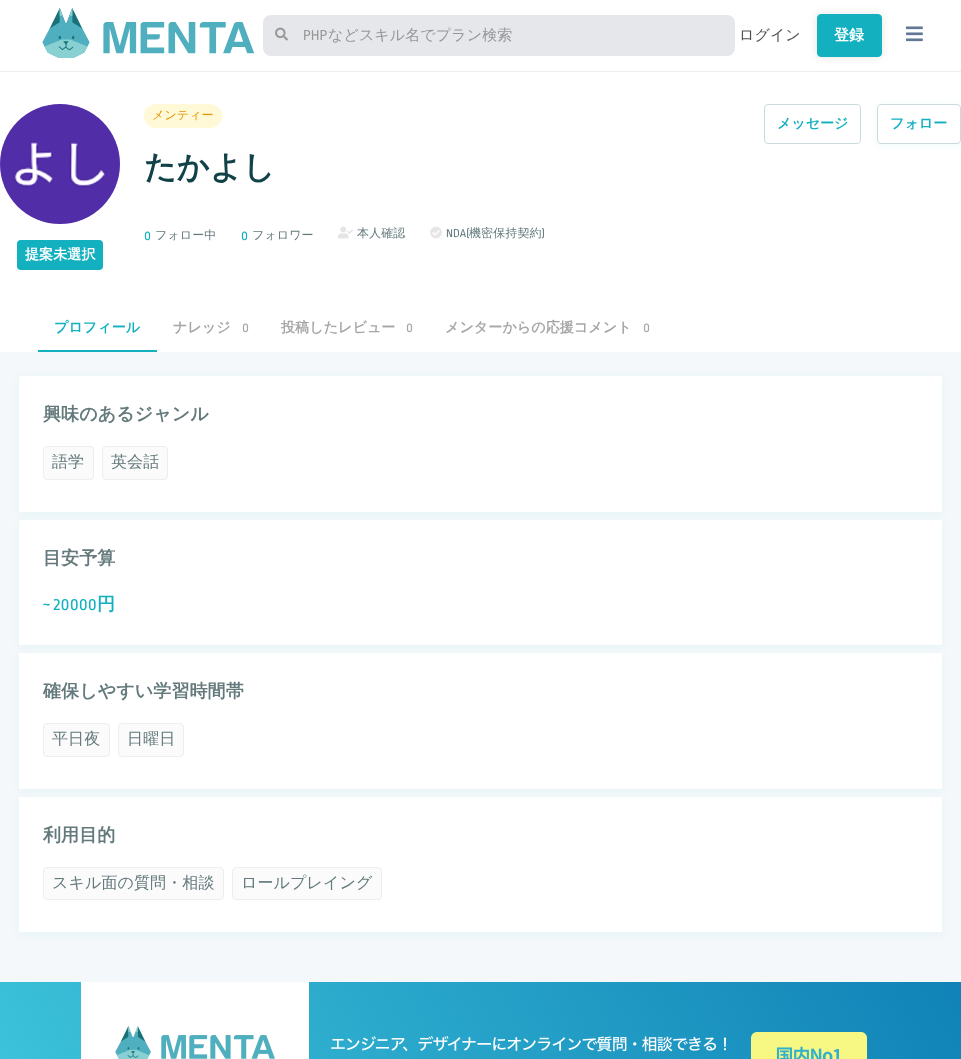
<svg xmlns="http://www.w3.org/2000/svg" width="961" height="1059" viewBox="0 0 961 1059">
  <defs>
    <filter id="blur1" x="-50%" y="-200%" width="200%" height="500%"><feGaussianBlur stdDeviation="5"/></filter>
    <filter id="blur2" x="-50%" y="-200%" width="200%" height="500%"><feGaussianBlur stdDeviation="4"/></filter>
    <linearGradient id="g1" gradientUnits="userSpaceOnUse" x1="875" y1="833" x2="86" y2="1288"><stop offset="0" stop-color="#1082b7"/><stop offset="1" stop-color="#3ec5db"/></linearGradient>
  </defs>
  <rect width="100%" height="100%" fill="#f4f8fa"/>
  <rect x="0" y="0" width="961" height="71" fill="#ffffff"/>
  <rect x="0" y="71" width="961" height="1" fill="#e9eef1"/>
  <image x="42" y="8" width="213" height="50" href="img1.png"/>
  <rect x="263" y="15" width="472" height="41" rx="8" fill="#e5e7eb"/>
  <image x="275" y="27" width="13" height="14" href="img2.png"/>
  <text x="303" y="40" font-family="Ropa Sans" font-size="15" letter-spacing="0.1" fill="#979798">PHP</text>
  <text x="328" y="40" font-family="WenQuanYi Zen Hei" font-size="15" font-weight="500" letter-spacing="0.1" fill="#979798">などスキル名でプラン検索</text>
  <text x="739" y="40" font-family="WenQuanYi Zen Hei" font-size="15" font-weight="500" letter-spacing="0.1" fill="#4f5050">ログイン</text>
  <rect x="0" y="72" width="961" height="280" fill="#ffffff"/>
  <rect x="817" y="14" width="65" height="43" rx="4" fill="#000000" fill-opacity="0.1" filter="url(#blur1)"/>
  <rect x="817.5" y="14.5" width="64" height="42" rx="3.5" fill="#13b1c0" stroke="#13b1c0"/>
  <text x="834" y="40" font-family="WenQuanYi Zen Hei" font-size="15" font-weight="bold" letter-spacing="0.1" fill="#ffffff">登録</text>
  <image x="906" y="26" width="17" height="16" href="img3.png"/>
  <rect x="144" y="104" width="78" height="24" rx="12" fill="#fff9d8"/>
  <text x="152" y="119" font-family="WenQuanYi Zen Hei" font-size="12" font-weight="500" letter-spacing="0.1" fill="#e59500">メンティー</text>
  <text x="144" y="178" font-family="WenQuanYi Zen Hei" font-size="32" font-weight="bold" letter-spacing="0.1" fill="#114248">たかよし</text>
  <text x="144" y="240" font-family="Ropa Sans" font-size="14" letter-spacing="0.1" fill="#13b1c0">0</text>
  <text x="155" y="239" font-family="WenQuanYi Zen Hei" font-size="12" font-weight="500" letter-spacing="0.1" fill="#63797b">フォロー中</text>
  <text x="241" y="240" font-family="Ropa Sans" font-size="14" letter-spacing="0.1" fill="#13b1c0">0</text>
  <text x="252" y="239" font-family="WenQuanYi Zen Hei" font-size="12" font-weight="500" letter-spacing="0.1" fill="#63797b">フォロワー</text>
  <image x="338" y="226" width="15" height="13" href="img4.png"/>
  <text x="357" y="237" font-family="WenQuanYi Zen Hei" font-size="12" font-weight="500" letter-spacing="0.1" fill="#63797b">本人確認</text>
  <image x="430" y="226" width="12" height="13" href="img5.png"/>
  <text x="446" y="237" font-family="Ropa Sans" font-size="12" letter-spacing="0.1" fill="#63797b">NDA(</text>
  <text x="469" y="237" font-family="WenQuanYi Zen Hei" font-size="12" font-weight="500" letter-spacing="0.1" fill="#63797b">機密保持契約</text>
  <text x="542" y="237" font-family="Ropa Sans" font-size="12" letter-spacing="0.1" fill="#63797b">)</text>
  <rect x="764.5" y="104.5" width="96" height="39" rx="3.5" fill="none" stroke="#cbdadc"/>
  <text x="777" y="128" font-family="WenQuanYi Zen Hei" font-size="14" font-weight="bold" fill="#13b1c0">メッセージ</text>
  <rect x="877" y="106" width="84" height="40" rx="4" fill="#13b1c0" fill-opacity="0.06" filter="url(#blur2)"/>
  <rect x="877.5" y="104.5" width="83" height="39" rx="3.5" fill="#ffffff" stroke="#cbdadc"/>
  <text x="890" y="128" font-family="WenQuanYi Zen Hei" font-size="14" font-weight="bold" letter-spacing="0.1" fill="#13b1c0">フォロー</text>
  <image x="0" y="104" width="120" height="120" href="img6.png"/>
  <rect x="17" y="240" width="86" height="30" rx="4" fill="#13b1c0"/>
  <text x="25" y="259" font-family="WenQuanYi Zen Hei" font-size="14" font-weight="bold" letter-spacing="0.1" fill="#ffffff">提案未選択</text>
  <text x="54" y="332" font-family="WenQuanYi Zen Hei" font-size="14" font-weight="bold" letter-spacing="0.1" fill="#13b1c0">プロフィール</text>
  <rect x="38" y="350" width="119" height="2" fill="#13b1c0"/>
  <text x="173" y="332" font-family="WenQuanYi Zen Hei" font-size="14" font-weight="bold" letter-spacing="0.1" fill="#a6a6a6">ナレッジ</text>
  <text x="242" y="332" font-family="Ropa Sans" font-size="14" letter-spacing="0.1" fill="#a6a6a6">0</text>
  <text x="281" y="332" font-family="WenQuanYi Zen Hei" font-size="14" font-weight="bold" letter-spacing="0.1" fill="#a6a6a6">投稿したレビュー</text>
  <text x="406" y="332" font-family="Ropa Sans" font-size="14" letter-spacing="0.1" fill="#a6a6a6">0</text>
  <text x="445" y="332" font-family="WenQuanYi Zen Hei" font-size="14" font-weight="bold" letter-spacing="0.1" fill="#a6a6a6">メンターからの応援コメント</text>
  <text x="643" y="332" font-family="Ropa Sans" font-size="14" letter-spacing="0.1" fill="#a6a6a6">0</text>
  <rect x="19" y="378" width="923" height="136" fill="#13b1c0" fill-opacity="0.06" filter="url(#blur2)"/>
  <rect x="19" y="376" width="923" height="136" fill="#ffffff"/>
  <text x="43" y="420" font-family="WenQuanYi Zen Hei" font-size="18" font-weight="bold" letter-spacing="0.1" fill="#63797b">興味のあるジャンル</text>
  <rect x="43.5" y="446.5" width="50" height="33" rx="3.5" fill="#fbfbfb" stroke="#eeeeee"/>
  <text x="52" y="467" font-family="WenQuanYi Zen Hei" font-size="16" font-weight="500" letter-spacing="0.1" fill="#63797b">語学</text>
  <rect x="102.5" y="446.5" width="65" height="33" rx="3.5" fill="#fbfbfb" stroke="#eeeeee"/>
  <text x="111" y="467" font-family="WenQuanYi Zen Hei" font-size="16" font-weight="500" letter-spacing="0.1" fill="#63797b">英会話</text>
  <rect x="19" y="522" width="923" height="125" fill="#13b1c0" fill-opacity="0.06" filter="url(#blur2)"/>
  <rect x="19" y="520" width="923" height="125" fill="#ffffff"/>
  <text x="43" y="564" font-family="WenQuanYi Zen Hei" font-size="18" font-weight="bold" letter-spacing="0.1" fill="#63797b">目安予算</text>
  <text x="43" y="610" font-family="Ropa Sans" font-size="18" letter-spacing="0.1" fill="#13b1c0">~ 20000</text>
  <text x="97" y="610" font-family="WenQuanYi Zen Hei" font-size="18" font-weight="bold" letter-spacing="0.1" fill="#13b1c0">円</text>
  <rect x="19" y="655" width="923" height="136" fill="#13b1c0" fill-opacity="0.06" filter="url(#blur2)"/>
  <rect x="19" y="653" width="923" height="136" fill="#ffffff"/>
  <text x="43" y="697" font-family="WenQuanYi Zen Hei" font-size="18" font-weight="bold" letter-spacing="0.1" fill="#63797b">確保しやすい学習時間帯</text>
  <rect x="43.5" y="723.5" width="66" height="33" rx="3.5" fill="#fbfbfb" stroke="#eeeeee"/>
  <text x="52" y="744" font-family="WenQuanYi Zen Hei" font-size="16" font-weight="500" letter-spacing="0.1" fill="#63797b">平日夜</text>
  <rect x="118.5" y="723.5" width="65" height="33" rx="3.5" fill="#fbfbfb" stroke="#eeeeee"/>
  <text x="127" y="744" font-family="WenQuanYi Zen Hei" font-size="16" font-weight="500" letter-spacing="0.1" fill="#63797b">日曜日</text>
  <rect x="19" y="799" width="923" height="135" fill="#13b1c0" fill-opacity="0.06" filter="url(#blur2)"/>
  <rect x="19" y="797" width="923" height="135" fill="#ffffff"/>
  <text x="43" y="841" font-family="WenQuanYi Zen Hei" font-size="18" font-weight="bold" letter-spacing="0.1" fill="#63797b">利用目的</text>
  <rect x="43.5" y="867.5" width="180" height="32" rx="3.5" fill="#fbfbfb" stroke="#eeeeee"/>
  <text x="52" y="888" font-family="WenQuanYi Zen Hei" font-size="16" font-weight="500" letter-spacing="0.1" fill="#63797b">スキル面の質問・相談</text>
  <rect x="232.5" y="867.5" width="149" height="32" rx="3.5" fill="#fbfbfb" stroke="#eeeeee"/>
  <text x="241" y="888" font-family="WenQuanYi Zen Hei" font-size="16" font-weight="500" letter-spacing="0.1" fill="#63797b">ロールプレイング</text>
  <rect x="0" y="982" width="961" height="77" fill="url(#g1)"/>
  <image x="81" y="982" width="786" height="77" href="img7.png"/>
</svg>
